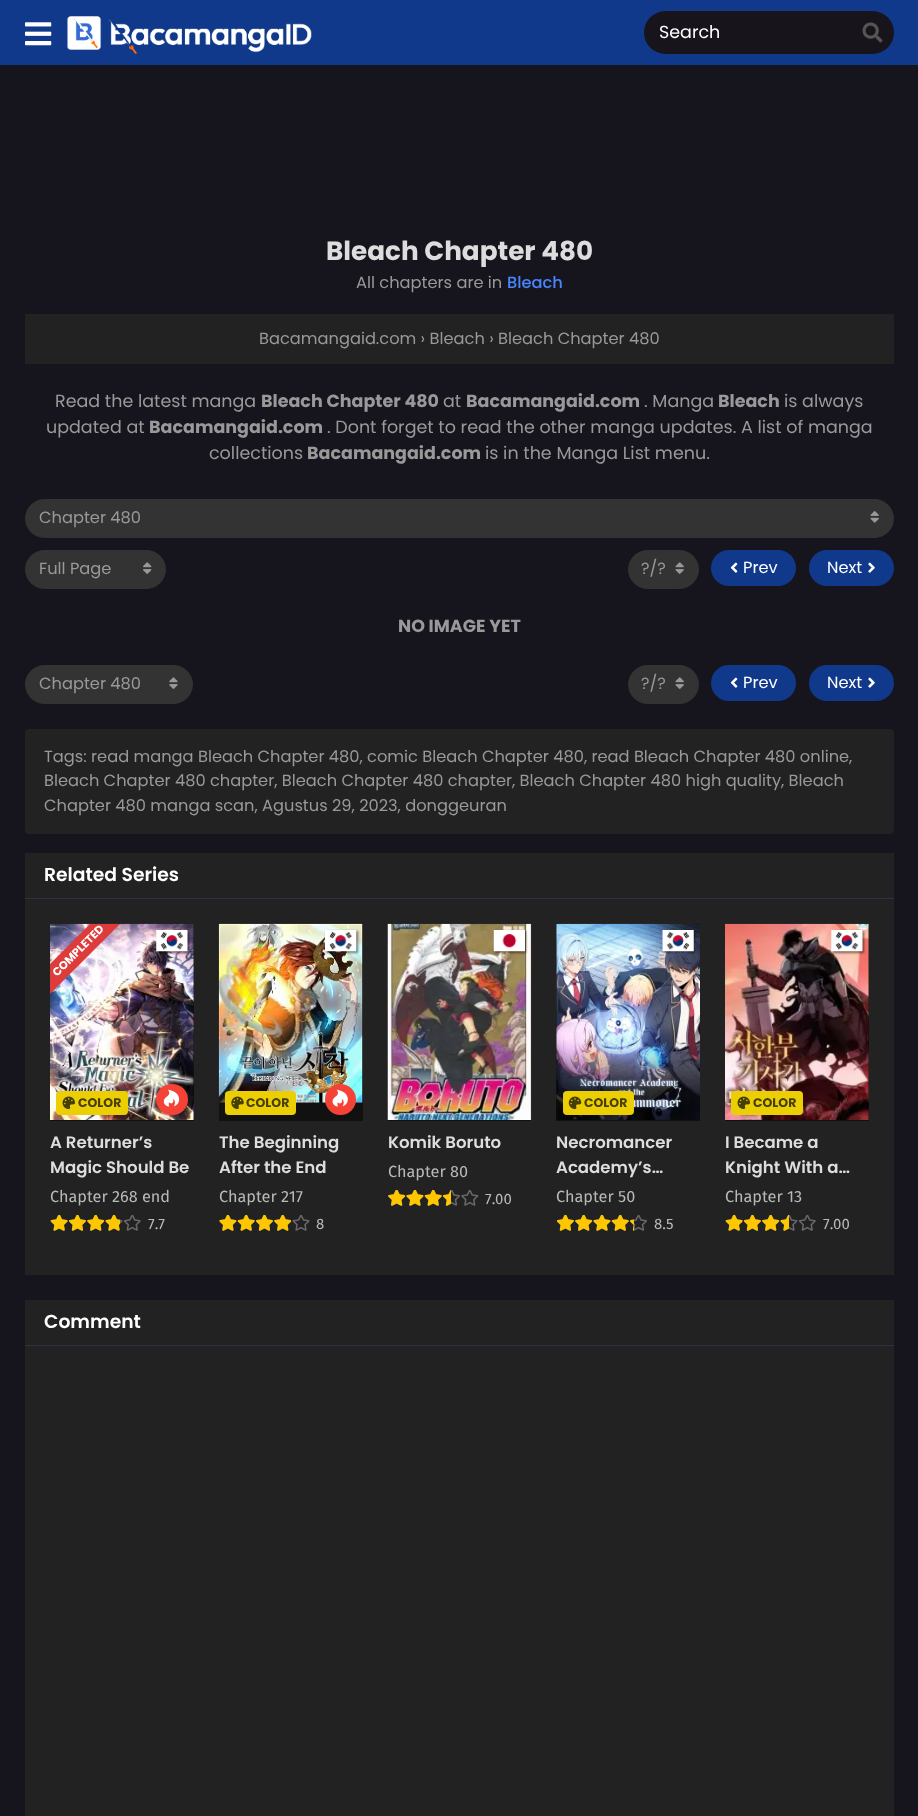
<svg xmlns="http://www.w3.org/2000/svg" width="918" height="1816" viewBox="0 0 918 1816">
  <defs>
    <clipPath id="clip1"><rect x="50" y="924" width="144" height="197"/></clipPath>
    <filter id="blur1" x="-50%" y="-200%" width="200%" height="500%"><feGaussianBlur stdDeviation="1"/></filter>
  </defs>
  <rect width="100%" height="100%" fill="#16151d"/>
  <rect x="0" y="0" width="918" height="65" fill="#10398b"/>
  <image x="25" y="22" width="27" height="24" href="img1.png"/>
  <image x="67" y="16" width="245" height="38" href="img2.png"/>
  <rect x="644" y="11" width="250" height="43" rx="21.5" fill="#17151b"/>
  <text x="659" y="38" font-family="Poppins" font-size="17.5" fill="#ffffff">Search</text>
  <image x="862" y="22" width="21" height="21" href="img3.png"/>
  <text x="326" y="260" font-family="Poppins" font-size="26.25" font-weight="bold" fill="#dddddd">Bleach Chapter 480</text>
  <text x="356" y="288" font-family="Poppins" font-size="16.25" fill="#999999">All chapters are in</text>
  <text x="507" y="288" font-family="Poppins" font-size="16.25" font-weight="500" fill="#4885ff">Bleach</text>
  <rect x="25" y="314" width="869" height="50" fill="#222222"/>
  <text x="259" y="344" font-family="Poppins" font-size="16.25" fill="#999999">Bacamangaid.com › Bleach › Bleach Chapter 480</text>
  <text x="55" y="407" font-family="Poppins" font-size="17.5" fill="#999999">Read the latest manga</text>
  <text x="261" y="407" font-family="Poppins" font-size="17.5" font-weight="bold" fill="#999999">Bleach Chapter 480</text>
  <text x="443" y="407" font-family="Poppins" font-size="17.5" fill="#999999">at</text>
  <text x="466" y="407" font-family="Poppins" font-size="17.5" font-weight="bold" fill="#999999">Bacamangaid.com</text>
  <text x="644" y="407" font-family="Poppins" font-size="17.5" fill="#999999">. Manga</text>
  <text x="718" y="407" font-family="Poppins" font-size="17.5" font-weight="bold" fill="#999999">Bleach</text>
  <text x="784" y="407" font-family="Poppins" font-size="17.5" fill="#999999">is always</text>
  <text x="46" y="433" font-family="Poppins" font-size="17.5" fill="#999999">updated at</text>
  <text x="149" y="433" font-family="Poppins" font-size="17.5" font-weight="bold" fill="#999999">Bacamangaid.com</text>
  <text x="327" y="433" font-family="Poppins" font-size="17.5" fill="#999999">. Dont forget to read the other manga updates. A list of manga</text>
  <text x="209" y="459" font-family="Poppins" font-size="17.5" fill="#999999">collections</text>
  <text x="307" y="459" font-family="Poppins" font-size="17.5" font-weight="bold" fill="#999999">Bacamangaid.com</text>
  <text x="485" y="459" font-family="Poppins" font-size="17.5" fill="#999999">is in the Manga List menu.</text>
  <rect x="25.5" y="499.5" width="868" height="38" rx="19" fill="#333333" stroke="#333333"/>
  <text x="39" y="523" font-family="Poppins" font-size="16.25" fill="#999999">Chapter 480</text>
  <image x="870" y="511" width="9" height="12" href="img4.png"/>
  <rect x="25.5" y="550.5" width="140" height="38" rx="19" fill="#333333" stroke="#333333"/>
  <text x="39" y="574" font-family="Poppins" font-size="16.25" fill="#999999">Full Page</text>
  <image x="143" y="562" width="9" height="12" href="img5.png"/>
  <rect x="628.5" y="550.5" width="70" height="38" rx="19" fill="#333333" stroke="#333333"/>
  <text x="641" y="574" font-family="Poppins" font-size="16.25" fill="#999999">?/?</text>
  <image x="675" y="562" width="9" height="12" href="img6.png"/>
  <rect x="711" y="550" width="85" height="36" rx="18" fill="#10398b"/>
  <image x="730" y="562" width="8" height="11" href="img7.png"/>
  <text x="743" y="573" font-family="Poppins" font-size="16.25" fill="#ffffff">Prev</text>
  <rect x="809" y="550" width="85" height="36" rx="18" fill="#10398b"/>
  <text x="827" y="573" font-family="Poppins" font-size="16.25" fill="#ffffff">Next</text>
  <image x="868" y="562" width="7" height="11" href="img8.png"/>
  <text x="398" y="632" font-family="Poppins" font-size="17.5" font-weight="bold" fill="#999999">NO IMAGE YET</text>
  <rect x="25.5" y="665.5" width="167" height="38" rx="19" fill="#333333" stroke="#333333"/>
  <text x="39" y="689" font-family="Poppins" font-size="16.25" fill="#999999">Chapter 480</text>
  <image x="169" y="677" width="9" height="12" href="img9.png"/>
  <rect x="628.5" y="665.5" width="70" height="38" rx="19" fill="#333333" stroke="#333333"/>
  <text x="641" y="689" font-family="Poppins" font-size="16.25" fill="#999999">?/?</text>
  <image x="675" y="677" width="9" height="12" href="img6.png"/>
  <rect x="711" y="665" width="85" height="36" rx="18" fill="#10398b"/>
  <image x="730" y="677" width="8" height="11" href="img7.png"/>
  <text x="743" y="688" font-family="Poppins" font-size="16.25" fill="#ffffff">Prev</text>
  <rect x="809" y="665" width="85" height="36" rx="18" fill="#10398b"/>
  <text x="827" y="688" font-family="Poppins" font-size="16.25" fill="#ffffff">Next</text>
  <image x="868" y="677" width="7" height="11" href="img8.png"/>
  <rect x="25" y="729" width="869" height="105" rx="4" fill="#222222"/>
  <text x="44" y="762" font-family="Poppins" font-size="16.25" fill="#999999">Tags: read manga Bleach Chapter 480, comic Bleach Chapter 480, read Bleach Chapter 480 online,</text>
  <text x="44" y="786" font-family="Poppins" font-size="16.25" fill="#999999">Bleach Chapter 480 chapter, Bleach Chapter 480 chapter, Bleach Chapter 480 high quality, Bleach</text>
  <text x="44" y="811" font-family="Poppins" font-size="16.25" fill="#999999">Chapter 480 manga scan, Agustus 29, 2023, donggeuran</text>
  <rect x="25" y="853" width="869" height="422" fill="#222222"/>
  <rect x="25" y="898" width="869" height="1" fill="#312f40"/>
  <text x="44" y="881" font-family="Poppins" font-size="18.75" font-weight="600" fill="#ffffff">Related Series</text>
  <rect x="50" y="924" width="144" height="197" fill="#111111"/>
  <image x="50" y="923" width="144" height="197" href="img10.png"/>
  <g clip-path="url(#clip1)">
    <path d="M31 983L111 903L126 918L46 998Z" fill="#de3b3b"/>
  </g>
  <text x="57" y="977" transform="rotate(-45 57 977)" font-family="Poppins" font-size="11.25" font-weight="bold" fill="#ffffff">COMPLETED</text>
  <rect x="158" y="931" width="31" height="22" fill="#000000" fill-opacity="0.5" filter="url(#blur1)"/>
  <image x="156" y="930" width="32" height="22" href="img11.png"/>
  <rect x="56" y="1091" width="72" height="24" rx="4" fill="#ebcf04"/>
  <image x="62" y="1096" width="13" height="13" href="img12.png"/>
  <text x="78" y="1107" font-family="Poppins" font-size="12.5" font-weight="bold" fill="#473e01">COLOR</text>
  <rect x="156" y="1084" width="32" height="31" rx="15.5" fill="#f44336"/>
  <image x="163" y="1089" width="17" height="18" href="img13.png"/>
  <text x="50" y="1148" font-family="Poppins" font-size="16.6" font-weight="600" fill="#dddddd">A Returner’s</text>
  <text x="50" y="1173" font-family="Poppins" font-size="16.6" font-weight="600" fill="#dddddd">Magic Should Be</text>
  <text x="50" y="1202" font-family="Fira Sans" font-size="16.25" fill="#b9b9b9">Chapter 268 end</text>
  <image x="50" y="1215" width="91" height="16" href="img14.png"/>
  <image x="50" y="1215" width="70" height="16" href="img15.png"/>
  <text x="148" y="1229" font-family="Fira Sans" font-size="15" fill="#b9b9b9">7.7</text>
  <rect x="219" y="924" width="144" height="197" fill="#111111"/>
  <image x="218" y="923" width="145" height="180" href="img16.png"/>
  <rect x="326" y="931" width="32" height="22" fill="#000000" fill-opacity="0.5" filter="url(#blur1)"/>
  <image x="325" y="930" width="32" height="22" href="img17.png"/>
  <rect x="225" y="1091" width="71" height="24" rx="4" fill="#ebcf04"/>
  <image x="231" y="1096" width="13" height="13" href="img18.png"/>
  <text x="246" y="1107" font-family="Poppins" font-size="12.5" font-weight="bold" fill="#473e01">COLOR</text>
  <circle cx="340.5" cy="1099.5" r="15.5" fill="#f44336"/>
  <image x="332" y="1089" width="16" height="18" href="img19.png"/>
  <text x="219" y="1148" font-family="Poppins" font-size="16.6" font-weight="600" fill="#dddddd">The Beginning</text>
  <text x="219" y="1173" font-family="Poppins" font-size="16.6" font-weight="600" fill="#dddddd">After the End</text>
  <text x="219" y="1202" font-family="Fira Sans" font-size="16.25" fill="#b9b9b9">Chapter 217</text>
  <image x="219" y="1215" width="91" height="16" href="img20.png"/>
  <image x="219" y="1215" width="72" height="16" href="img21.png"/>
  <text x="316" y="1229" font-family="Fira Sans" font-size="15" fill="#b9b9b9">8</text>
  <rect x="388" y="1120" width="143" height="1" fill="#111111"/>
  <image x="387" y="923" width="145" height="197" href="img22.png"/>
  <rect x="495" y="931" width="31" height="22" fill="#000000" fill-opacity="0.5" filter="url(#blur1)"/>
  <image x="493" y="930" width="32" height="22" href="img23.png"/>
  <text x="388" y="1148" font-family="Poppins" font-size="16.6" font-weight="600" fill="#dddddd">Komik Boruto</text>
  <text x="388" y="1177" font-family="Fira Sans" font-size="16.25" fill="#b9b9b9">Chapter 80</text>
  <image x="388" y="1190" width="91" height="16" href="img24.png"/>
  <image x="388" y="1190" width="63" height="16" href="img25.png"/>
  <text x="485" y="1204" font-family="Fira Sans" font-size="15" fill="#b9b9b9">7.00</text>
  <rect x="556" y="924" width="144" height="197" fill="#111111"/>
  <image x="556" y="923" width="144" height="197" href="img26.png"/>
  <rect x="664" y="931" width="31" height="22" fill="#000000" fill-opacity="0.5" filter="url(#blur1)"/>
  <image x="662" y="930" width="32" height="22" href="img27.png"/>
  <rect x="563" y="1091" width="71" height="24" rx="4" fill="#ebcf04"/>
  <image x="568" y="1096" width="14" height="13" href="img28.png"/>
  <text x="584" y="1107" font-family="Poppins" font-size="12.5" font-weight="bold" fill="#473e01">COLOR</text>
  <text x="556" y="1148" font-family="Poppins" font-size="16.6" font-weight="600" fill="#dddddd">Necromancer</text>
  <text x="556" y="1173" font-family="Poppins" font-size="16.6" font-weight="600" fill="#dddddd">Academy’s…</text>
  <text x="556" y="1202" font-family="Fira Sans" font-size="16.25" fill="#b9b9b9">Chapter 50</text>
  <image x="557" y="1215" width="90" height="16" href="img30.png"/>
  <image x="556" y="1215" width="78" height="16" href="img29.png"/>
  <text x="654" y="1229" font-family="Fira Sans" font-size="15" fill="#b9b9b9">8.5</text>
  <rect x="725" y="924" width="144" height="197" fill="#111111"/>
  <image x="725" y="923" width="144" height="197" href="img31.png"/>
  <rect x="833" y="931" width="31" height="22" fill="#000000" fill-opacity="0.5" filter="url(#blur1)"/>
  <image x="831" y="930" width="32" height="22" href="img32.png"/>
  <rect x="731" y="1091" width="72" height="24" rx="4" fill="#ebcf04"/>
  <image x="737" y="1096" width="13" height="13" href="img12.png"/>
  <text x="753" y="1107" font-family="Poppins" font-size="12.5" font-weight="bold" fill="#473e01">COLOR</text>
  <text x="725" y="1148" font-family="Poppins" font-size="16.6" font-weight="600" fill="#dddddd">I Became a</text>
  <text x="725" y="1173" font-family="Poppins" font-size="16.6" font-weight="600" fill="#dddddd">Knight With a…</text>
  <text x="725" y="1202" font-family="Fira Sans" font-size="16.25" fill="#b9b9b9">Chapter 13</text>
  <image x="725" y="1215" width="91" height="16" href="img14.png"/>
  <image x="725" y="1215" width="64" height="16" href="img33.png"/>
  <text x="823" y="1229" font-family="Fira Sans" font-size="15" fill="#b9b9b9">7.00</text>
  <rect x="25" y="1300" width="869" height="516" fill="#222222"/>
  <rect x="25" y="1345" width="869" height="1" fill="#312f40"/>
  <text x="44" y="1328" font-family="Poppins" font-size="18.75" font-weight="600" fill="#ffffff">Comment</text>
</svg>
